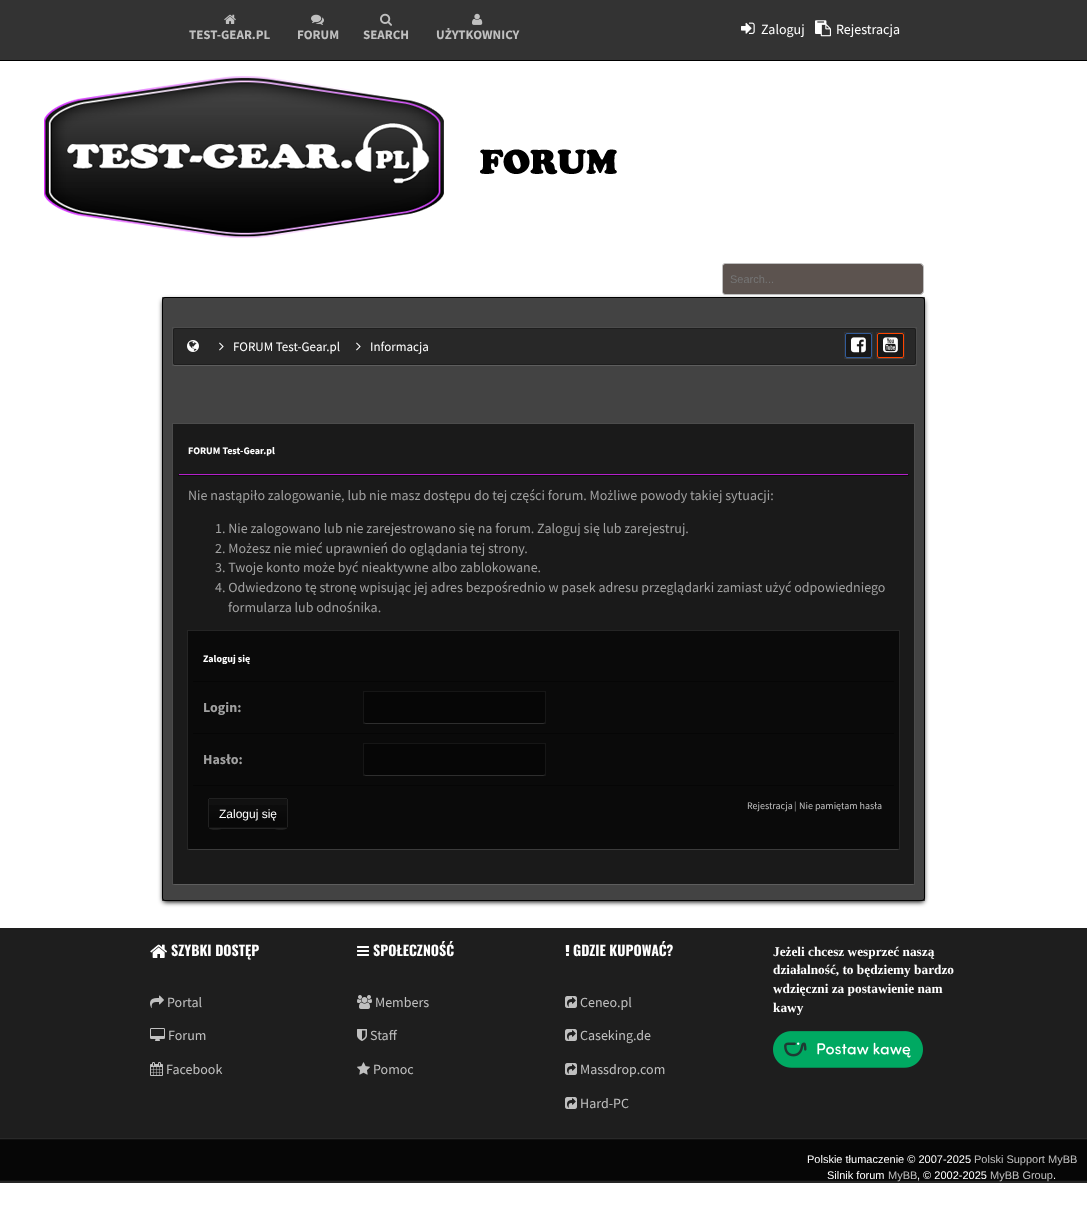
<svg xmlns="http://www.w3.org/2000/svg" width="1087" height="1208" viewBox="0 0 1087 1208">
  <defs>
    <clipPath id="clip1"><path d="M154 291H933V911H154ZM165 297H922C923.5 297 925 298.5 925 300V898C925 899.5 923.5 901 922 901H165C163.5 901 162 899.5 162 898V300C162 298.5 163.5 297 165 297Z" clip-rule="evenodd"/></clipPath>
    <filter id="blur1" x="-50%" y="-200%" width="200%" height="500%"><feGaussianBlur stdDeviation="2.5"/></filter>
  </defs>
  <rect width="100%" height="100%" fill="#ffffff"/>
  <rect x="0" y="0" width="1087" height="60" fill="#333333"/>
  <rect x="0" y="60" width="1087" height="1" fill="#000000"/>
  <image x="224" y="14" width="12" height="10" href="img1.png"/>
  <text x="189" y="39" font-family="Source Sans Pro" font-size="13" font-weight="bold" fill="#c0c0c0">TEST-GEAR.PL</text>
  <image x="311" y="14" width="13" height="11" href="img2.png"/>
  <text x="297" y="39" font-family="Source Sans Pro" font-size="13" font-weight="bold" fill="#c0c0c0">FORUM</text>
  <image x="380" y="13" width="12" height="13" href="img3.png"/>
  <text x="363" y="39" font-family="Source Sans Pro" font-size="13" font-weight="bold" fill="#c0c0c0">SEARCH</text>
  <image x="472" y="13" width="11" height="12" href="img4.png"/>
  <text x="436" y="39" font-family="Source Sans Pro" font-size="13" font-weight="bold" fill="#c0c0c0">UŻYTKOWNICY</text>
  <image x="741" y="22" width="14" height="12" href="img5.png"/>
  <text x="761" y="34" font-family="Source Sans Pro" font-size="14" fill="#ffffff">Zaloguj</text>
  <image x="815" y="20" width="16" height="17" href="img6.png"/>
  <text x="836" y="34" font-family="Source Sans Pro" font-size="14" fill="#ffffff">Rejestracja</text>
  <image x="44" y="76" width="573" height="162" href="img7.png"/>
  <g clip-path="url(#clip1)">
    <rect x="163" y="300" width="761" height="602" rx="2" fill="#000000" filter="url(#blur1)"/>
  </g>
  <path d="M725 264H920C921.5 264 923 265.5 923 267V291C923 292.5 921.5 294 920 294H725C724 294 723 293 723 292V266C723 265 724 264 725 264Z" fill="#5c534f"/>
  <path d="M725 263.5H920C922 263.5 923.5 265 923.5 267V291C923.5 293 922 294.5 920 294.5H725C723.5 294.5 722.5 293.5 722.5 292V266C722.5 264.5 723.5 263.5 725 263.5Z" fill="none" stroke="#000000" stroke-opacity="0.25"/>
  <text x="730" y="283" font-family="Liberation Sans" font-size="11" fill="#757575">Search...</text>
  <rect x="162" y="297" width="763" height="604" rx="3" fill="#474747" fill-opacity="0.47"/>
  <rect x="162" y="297" width="763" height="604" fill="#000000" fill-opacity="0.6"/>
  <rect x="162.5" y="297.5" width="762" height="603" rx="2.5" fill="none" stroke="#000000"/>
  <path d="M173 363C173 364 173 366 175 366H914C916 366 916 364 916 363C916 364 915 365 914 365H175C174 365 173 364 173 363Z" fill="#565656"/>
  <rect x="172.5" y="327.5" width="744" height="38" fill="none" stroke="#ffffff" stroke-opacity="0.05"/>
  <rect x="173" y="328" width="743" height="37" rx="2" fill="#000000" fill-opacity="0.4"/>
  <rect x="173.5" y="328.5" width="742" height="36" rx="1.5" fill="none" stroke="#000000" stroke-opacity="0.25"/>
  <image x="187" y="340" width="12" height="12" href="img8.png"/>
  <image x="219" y="342" width="5" height="9" href="img9.png"/>
  <text x="233" y="351" font-family="Source Sans Pro" font-size="13" fill="#ffffff">FORUM Test-Gear.pl</text>
  <image x="356" y="342" width="5" height="9" href="img9.png"/>
  <text x="370" y="351" font-family="Source Sans Pro" font-size="13" fill="#ffffff">Informacja</text>
  <path d="M845 356C845 360 847.5 359 851 359H866C869.5 359 872 360 872 356C872 357 871 358 870 358H847C846 358 845 357 845 356Z" fill="#3e3e3e"/>
  <rect x="844.5" y="332.5" width="28" height="26" fill="none" stroke="#ffffff" stroke-opacity="0.05"/>
  <rect x="845.5" y="333.5" width="26" height="24" rx="1.5" fill="#000000" fill-opacity="0.4" stroke="#315b9a"/>
  <image x="851" y="337" width="15" height="16" href="img10.png"/>
  <path d="M877 356C877 360 879.5 359 883 359H898C901.5 359 904 360 904 356C904 357 903 358 902 358H879C878 358 877 357 877 356Z" fill="#3e3e3e"/>
  <rect x="876.5" y="332.5" width="28" height="26" fill="none" stroke="#ffffff" stroke-opacity="0.05"/>
  <rect x="877.5" y="333.5" width="26" height="24" rx="1.5" fill="#000000" fill-opacity="0.4" stroke="#ff4500"/>
  <image x="883" y="337" width="15" height="16" href="img11.png"/>
  <path d="M173 882C173 883 173 885 175 885H912C914 885 914 883 914 882C914 883 913 884 912 884H175C174 884 173 883 173 882Z" fill="#565656"/>
  <rect x="172.5" y="423.5" width="742" height="461" fill="none" stroke="#ffffff" stroke-opacity="0.05"/>
  <rect x="173" y="424" width="741" height="460" fill="#000000" fill-opacity="0.6"/>
  <rect x="179" y="474" width="729" height="1" fill="#b520cc"/>
  <text x="188" y="454" font-family="Source Sans Pro" font-size="10" font-weight="bold" fill="#ffffff">FORUM Test-Gear.pl</text>
  <rect x="178" y="475" width="731" height="1" fill="#0d0d0d"/>
  <text x="188" y="500" font-family="Source Sans Pro" font-size="14" fill="#a1a1a1">Nie nastąpiło zalogowanie, lub nie masz dostępu do tej części forum. Możliwe powody takiej sytuacji:</text>
  <text x="215" y="533" font-family="Source Sans Pro" font-size="14" fill="#a1a1a1">1. Nie zalogowano lub nie zarejestrowano się na forum. Zaloguj się lub zarejestruj.</text>
  <text x="215" y="553" font-family="Source Sans Pro" font-size="14" fill="#a1a1a1">2. Możesz nie mieć uprawnień do oglądania tej strony.</text>
  <text x="215" y="572" font-family="Source Sans Pro" font-size="14" fill="#a1a1a1">3. Twoje konto może być nieaktywne albo zablokowane.</text>
  <text x="215" y="592" font-family="Source Sans Pro" font-size="14" fill="#a1a1a1">4. Odwiedzono tę stronę wpisując jej adres bezpośrednio w pasek adresu przeglądarki zamiast użyć odpowiedniego</text>
  <text x="228" y="612" font-family="Source Sans Pro" font-size="14" fill="#a1a1a1">formularza lub odnośnika.</text>
  <path d="M188 847C188 848 188 850 190 850H897C899 850 899 848 899 847C899 848 898 849 897 849H190C189 849 188 848 188 847Z" fill="#323232"/>
  <rect x="187.5" y="630.5" width="712" height="219" fill="none" stroke="#ffffff" stroke-opacity="0.05"/>
  <rect x="188" y="631" width="711" height="218" fill="#000000" fill-opacity="0.6"/>
  <text x="203" y="662" font-family="Source Sans Pro" font-size="10" font-weight="bold" fill="#ffffff">Zaloguj się</text>
  <rect x="193" y="681" width="701" height="1" fill="#060606"/>
  <text x="203" y="712" font-family="Source Sans Pro" font-size="14" font-weight="bold" fill="#a1a1a1">Login:</text>
  <path d="M364 721V722C364 723 365 724 366 724H543C544 724 545 723 545 722V721C545 722 544 723 543 723H366C365 723 364 722 364 721Z" fill="#232323"/>
  <rect x="363.5" y="691.5" width="182" height="32" fill="none" stroke="#ffffff" stroke-opacity="0.05"/>
  <rect x="364" y="692" width="181" height="31" rx="2" fill="#000000" fill-opacity="0.4"/>
  <rect x="193" y="733" width="701" height="1" fill="#060606"/>
  <text x="203" y="764" font-family="Source Sans Pro" font-size="14" font-weight="bold" fill="#a1a1a1">Hasło:</text>
  <path d="M364 773V774C364 775 365 776 366 776H543C544 776 545 775 545 774V773C545 774 544 775 543 775H366C365 775 364 774 364 773Z" fill="#232323"/>
  <rect x="363.5" y="743.5" width="182" height="32" fill="none" stroke="#ffffff" stroke-opacity="0.05"/>
  <rect x="364" y="744" width="181" height="31" rx="2" fill="#000000" fill-opacity="0.4"/>
  <rect x="193" y="785" width="701" height="1" fill="#060606"/>
  <text x="747" y="809" font-family="Source Sans Pro" font-size="10" fill="#c0c0c0">Rejestracja</text>
  <text x="794" y="809" font-family="Source Sans Pro" font-size="10" fill="#a1a1a1">|</text>
  <text x="799" y="809" font-family="Source Sans Pro" font-size="10" fill="#c0c0c0">Nie pamiętam hasła</text>
  <path d="M208 826C208 832 220 829 223 829H273C276 829 288 832 288 826C288 827 287 828 286 828H210C209 828 208 827 208 826Z" fill="#232323"/>
  <path d="M210 799H286C287 799 287 799 287 800V826C287 827 287 828 286 828H210C209 828 209 827 209 826V800C209 799 209 799 210 799Z" fill="#111111"/>
  <image x="209" y="805" width="78" height="22" href="img12.png"/>
  <rect x="209" y="798" width="78" height="1" fill="#212121"/>
  <rect x="287" y="799" width="1" height="28" fill="#212121"/>
  <rect x="208" y="799" width="1" height="28" fill="#212121"/>
  <text x="219" y="818" font-family="Liberation Sans" font-size="12" fill="#ffffff">Zaloguj się</text>
  <rect x="0" y="1182" width="1087" height="1" fill="#1a1a1a"/>
  <rect x="-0.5" y="927.5" width="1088" height="255" fill="none" stroke="#ffffff" stroke-opacity="0.05"/>
  <rect x="0" y="928" width="1087" height="211" fill="#1e1e1e"/>
  <image x="150" y="944" width="17" height="14" href="img13.png"/>
  <text x="171" y="956" font-family="Oswald" font-size="14" font-weight="bold" fill="#ffffff">SZYBKI DOSTĘP</text>
  <image x="150" y="995" width="14" height="13" href="img14.png"/>
  <text x="167" y="1007" font-family="Source Sans Pro" font-size="14" fill="#c0c0c0">Portal</text>
  <image x="150" y="1028" width="15" height="13" href="img15.png"/>
  <text x="168" y="1040" font-family="Source Sans Pro" font-size="14" fill="#c0c0c0">Forum</text>
  <image x="150" y="1062" width="13" height="14" href="img16.png"/>
  <text x="166" y="1074" font-family="Source Sans Pro" font-size="14" fill="#c0c0c0">Facebook</text>
  <image x="357" y="946" width="12" height="10" href="img17.png"/>
  <text x="373" y="956" font-family="Oswald" font-size="14" font-weight="bold" fill="#ffffff">SPOŁECZNOŚĆ</text>
  <image x="357" y="995" width="15" height="14" href="img18.png"/>
  <text x="375" y="1007" font-family="Source Sans Pro" font-size="14" fill="#c0c0c0">Members</text>
  <image x="357" y="1029" width="10" height="12" href="img19.png"/>
  <text x="370" y="1040" font-family="Source Sans Pro" font-size="14" fill="#c0c0c0">Staff</text>
  <image x="357" y="1062" width="13" height="13" href="img20.png"/>
  <text x="373" y="1074" font-family="Source Sans Pro" font-size="14" fill="#c0c0c0">Pomoc</text>
  <image x="565" y="945" width="5" height="11" href="img21.png"/>
  <text x="573" y="956" font-family="Oswald" font-size="14" font-weight="bold" fill="#ffffff">GDZIE KUPOWAĆ?</text>
  <image x="565" y="996" width="12" height="12" href="img22.png"/>
  <text x="580" y="1007" font-family="Source Sans Pro" font-size="14" fill="#c0c0c0">Ceneo.pl</text>
  <image x="565" y="1029" width="12" height="12" href="img22.png"/>
  <text x="580" y="1040" font-family="Source Sans Pro" font-size="14" fill="#c0c0c0">Caseking.de</text>
  <image x="565" y="1063" width="12" height="12" href="img22.png"/>
  <text x="580" y="1074" font-family="Source Sans Pro" font-size="14" fill="#c0c0c0">Massdrop.com</text>
  <image x="565" y="1097" width="12" height="12" href="img22.png"/>
  <text x="580" y="1108" font-family="Source Sans Pro" font-size="14" fill="#c0c0c0">Hard-PC</text>
  <text x="773" y="956" font-family="Liberation Serif" font-size="13.3" font-weight="bold" fill="#ffffff">Jeżeli chcesz wesprzeć naszą</text>
  <text x="773" y="974" font-family="Liberation Serif" font-size="13.3" font-weight="bold" fill="#ffffff">działalność, to będziemy bardzo</text>
  <text x="773" y="993" font-family="Liberation Serif" font-size="13.3" font-weight="bold" fill="#ffffff">wdzięczni za postawienie nam</text>
  <text x="773" y="1012" font-family="Liberation Serif" font-size="13.3" font-weight="bold" fill="#ffffff">kawy</text>
  <image x="773" y="1031" width="150" height="37" href="img23.png"/>
  <rect x="0" y="1181" width="1087" height="1" fill="#1a1a1a"/>
  <rect x="-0.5" y="1138.5" width="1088" height="43" fill="none" stroke="#ffffff" stroke-opacity="0.05"/>
  <rect x="0" y="1140" width="1087" height="40" fill="#060606"/>
  <rect x="0" y="1139" width="1087" height="1" fill="#101010"/>
  <rect x="0" y="1180" width="1087" height="1" fill="#101010"/>
  <text x="807" y="1163" font-family="Liberation Sans" font-size="11" fill="#ffffff">Polskie tłumaczenie © 2007-2025</text>
  <text x="974" y="1163" font-family="Liberation Sans" font-size="11" fill="#c0c0c0">Polski Support MyBB</text>
  <text x="827" y="1179" font-family="Liberation Sans" font-size="11" fill="#ffffff">Silnik forum</text>
  <text x="888" y="1179" font-family="Liberation Sans" font-size="11" fill="#c0c0c0">MyBB</text>
  <text x="917" y="1179" font-family="Liberation Sans" font-size="11" fill="#ffffff">, © 2002-2025</text>
  <text x="990" y="1179" font-family="Liberation Sans" font-size="11" fill="#c0c0c0">MyBB Group</text>
  <text x="1053" y="1179" font-family="Liberation Sans" font-size="11" fill="#ffffff">.</text>
</svg>
